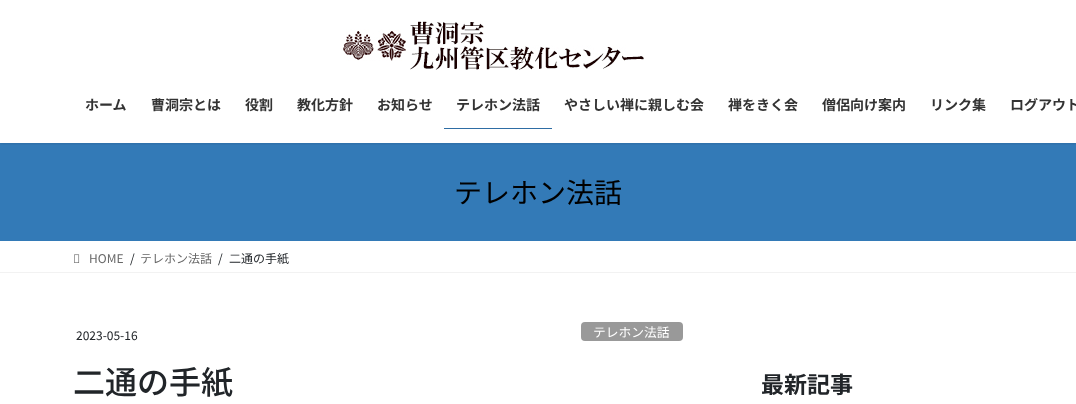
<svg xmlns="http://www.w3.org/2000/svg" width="1076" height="404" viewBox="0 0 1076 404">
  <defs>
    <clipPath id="clip1"><rect x="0" y="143" width="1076" height="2"/></clipPath>
    <filter id="blur1" x="-50%" y="-200%" width="200%" height="500%"><feGaussianBlur stdDeviation="1.5"/></filter>
  </defs>
  <rect width="100%" height="100%" fill="#ffffff"/>
  <rect x="0" y="143" width="1076" height="98" fill="#337ab7"/>
  <g clip-path="url(#clip1)">
    <rect x="0" y="1" width="1076" height="143" fill="#000000" fill-opacity="0.1" filter="url(#blur1)"/>
  </g>
  <image x="343" y="21" width="301" height="49" href="img1.png"/>
  <text x="85" y="110" font-family="Noto Sans JP" font-size="14" font-weight="bold" fill="#333333">ホーム</text>
  <text x="151" y="110" font-family="Noto Sans JP" font-size="14" font-weight="bold" fill="#333333">曹洞宗とは</text>
  <text x="245" y="110" font-family="Noto Sans JP" font-size="14" font-weight="bold" fill="#333333">役割</text>
  <text x="297" y="110" font-family="Noto Sans JP" font-size="14" font-weight="bold" fill="#333333">教化方針</text>
  <text x="377" y="110" font-family="Noto Sans JP" font-size="14" font-weight="bold" fill="#333333">お知らせ</text>
  <text x="456" y="110" font-family="Noto Sans JP" font-size="14" font-weight="bold" fill="#333333">テレホン法話</text>
  <rect x="444" y="128" width="108" height="1" fill="#2e6da4"/>
  <text x="564" y="110" font-family="Noto Sans JP" font-size="14" font-weight="bold" fill="#333333">やさしい禅に親しむ会</text>
  <text x="728" y="110" font-family="Noto Sans JP" font-size="14" font-weight="bold" fill="#333333">禅をきく会</text>
  <text x="822" y="110" font-family="Noto Sans JP" font-size="14" font-weight="bold" fill="#333333">僧侶向け案内</text>
  <text x="930" y="110" font-family="Noto Sans JP" font-size="14" font-weight="bold" fill="#333333">リンク集</text>
  <text x="1010" y="110" font-family="Noto Sans JP" font-size="14" font-weight="bold" fill="#333333">ログアウト</text>
  <text x="454" y="203" font-family="Noto Sans JP" font-size="28" fill="#000000">テレホン法話</text>
  <rect x="0" y="272" width="1076" height="1" fill="#f2f2f2"/>
  <image x="74" y="254" width="6" height="9" href="img2.png"/>
  <text x="89" y="263" font-family="Noto Sans JP" font-size="12" fill="#666666">HOME</text>
  <text x="130" y="263" font-family="Noto Sans JP" font-size="12" fill="#212529">/</text>
  <text x="140" y="263" font-family="Noto Sans JP" font-size="12" fill="#666666">テレホン法話</text>
  <text x="218" y="263" font-family="Noto Sans JP" font-size="12" fill="#212529">/</text>
  <text x="229" y="263" font-family="Noto Sans JP" font-size="12" fill="#212529">二通の手紙</text>
  <text x="76" y="340" font-family="Noto Sans JP" font-size="12" fill="#212529">2023-05-16</text>
  <rect x="581" y="322" width="102" height="19" rx="4" fill="#999999"/>
  <text x="593" y="337" font-family="Noto Sans JP" font-size="12.75" fill="#ffffff">テレホン法話</text>
  <text x="73" y="394" font-family="Noto Sans JP" font-size="32" font-weight="500" fill="#212529">二通の手紙</text>
  <text x="761" y="393" font-family="Noto Sans JP" font-size="23" font-weight="bold" fill="#212529">最新記事</text>
</svg>
